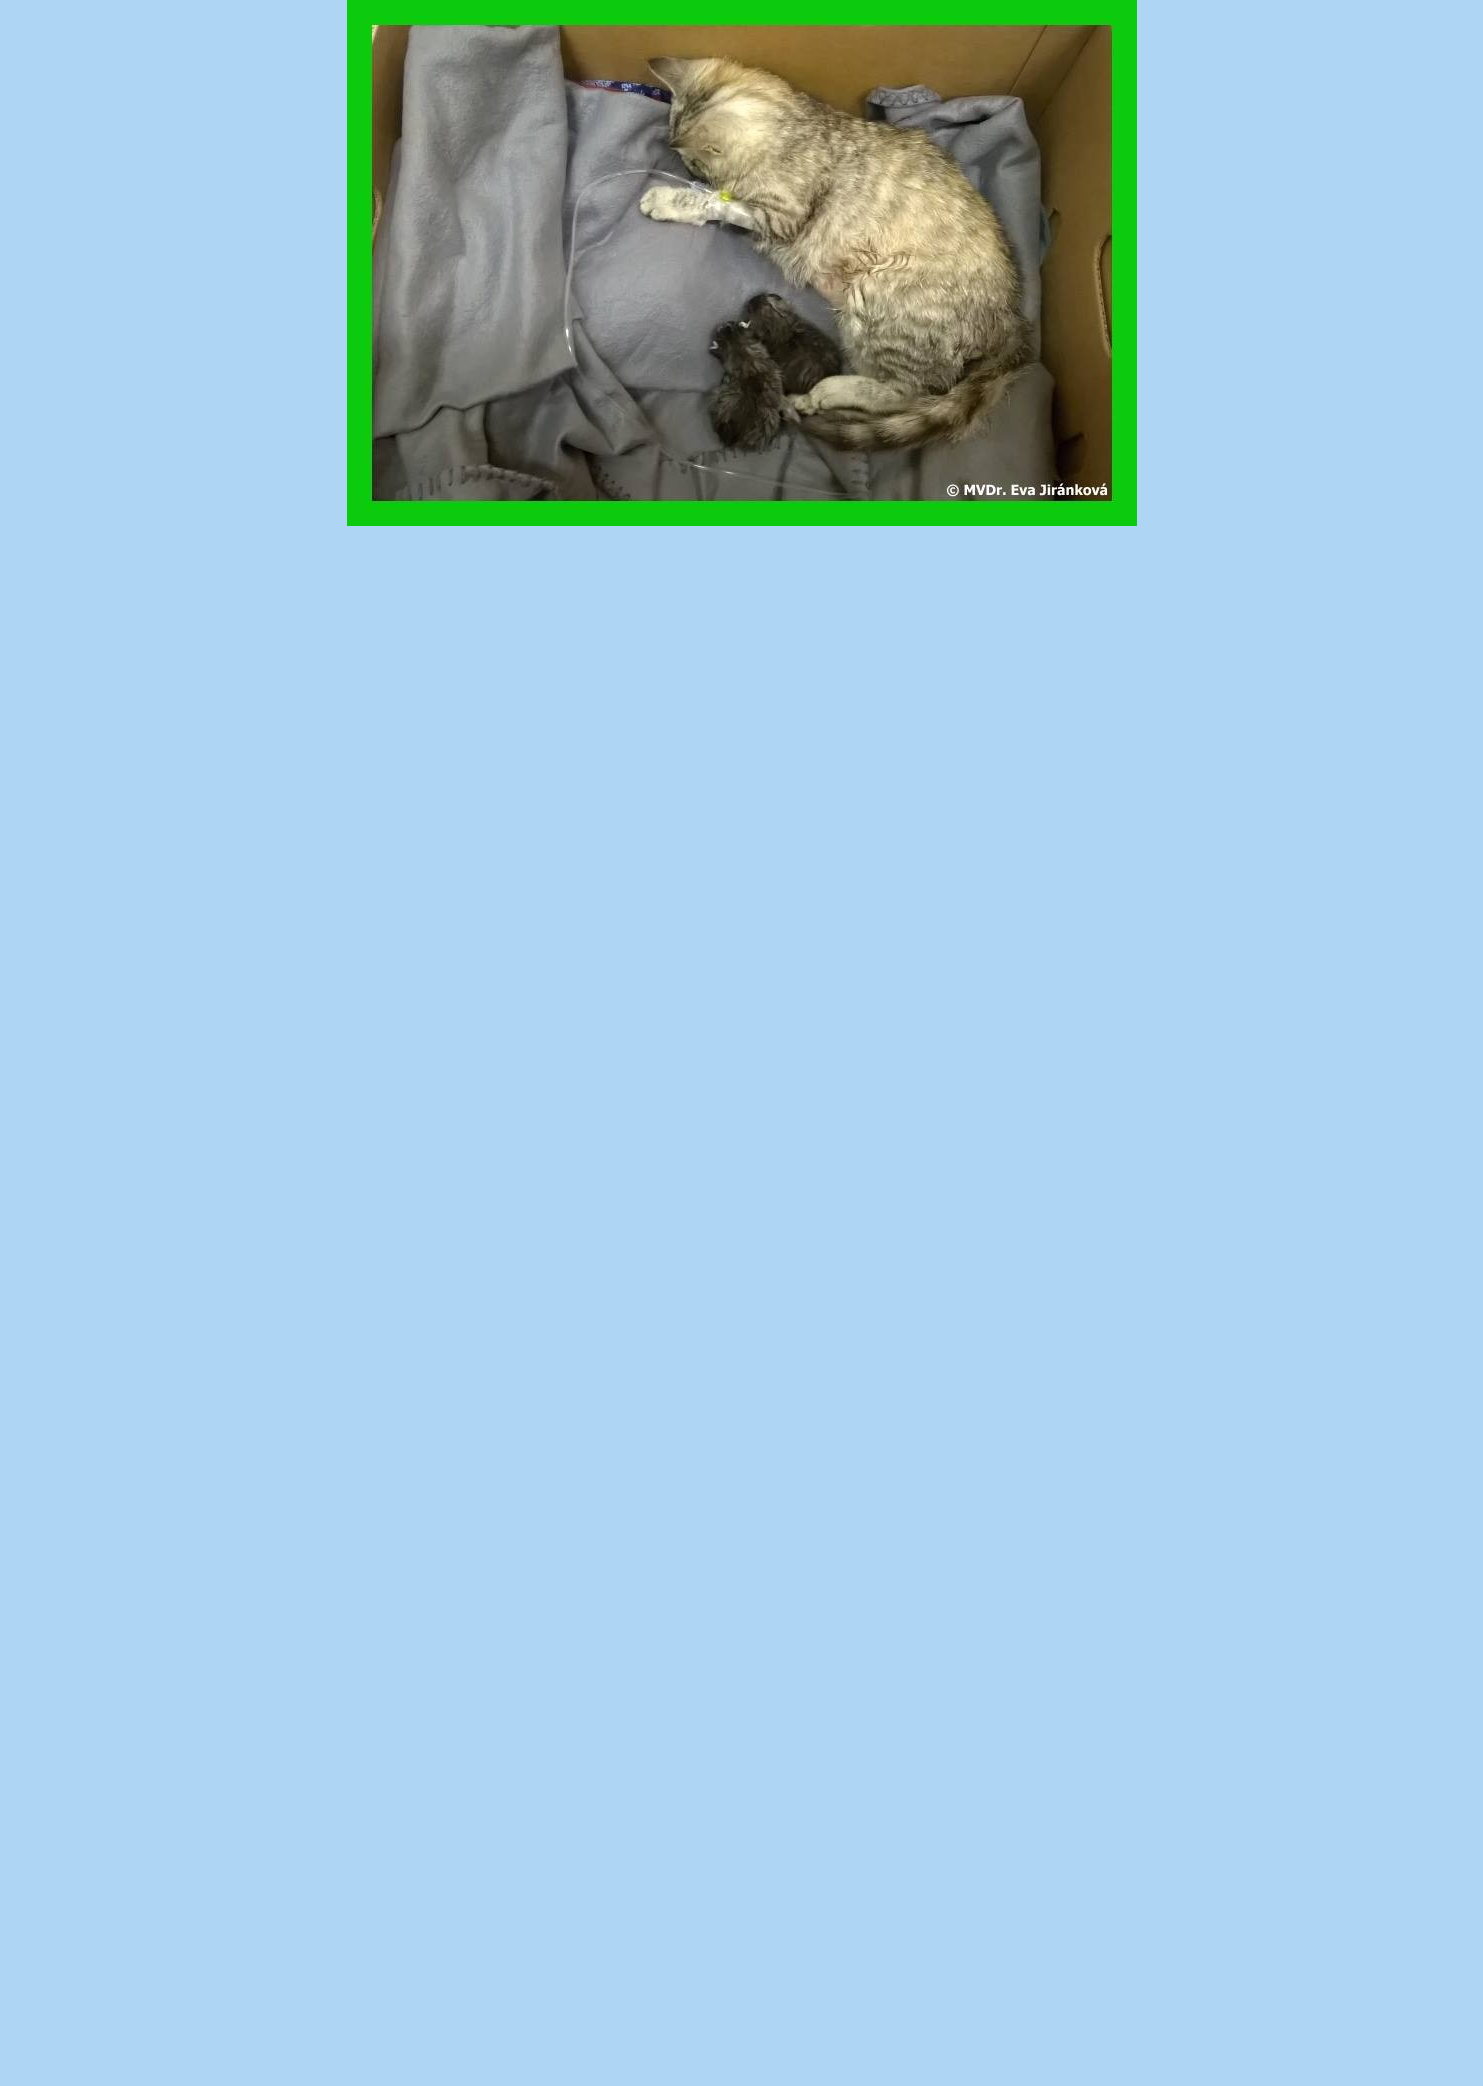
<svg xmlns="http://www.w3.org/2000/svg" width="1483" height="2086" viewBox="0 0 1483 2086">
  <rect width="100%" height="100%" fill="#afd5f4"/>
  <image x="347" y="0" width="790" height="526" href="img1.png"/>
</svg>
